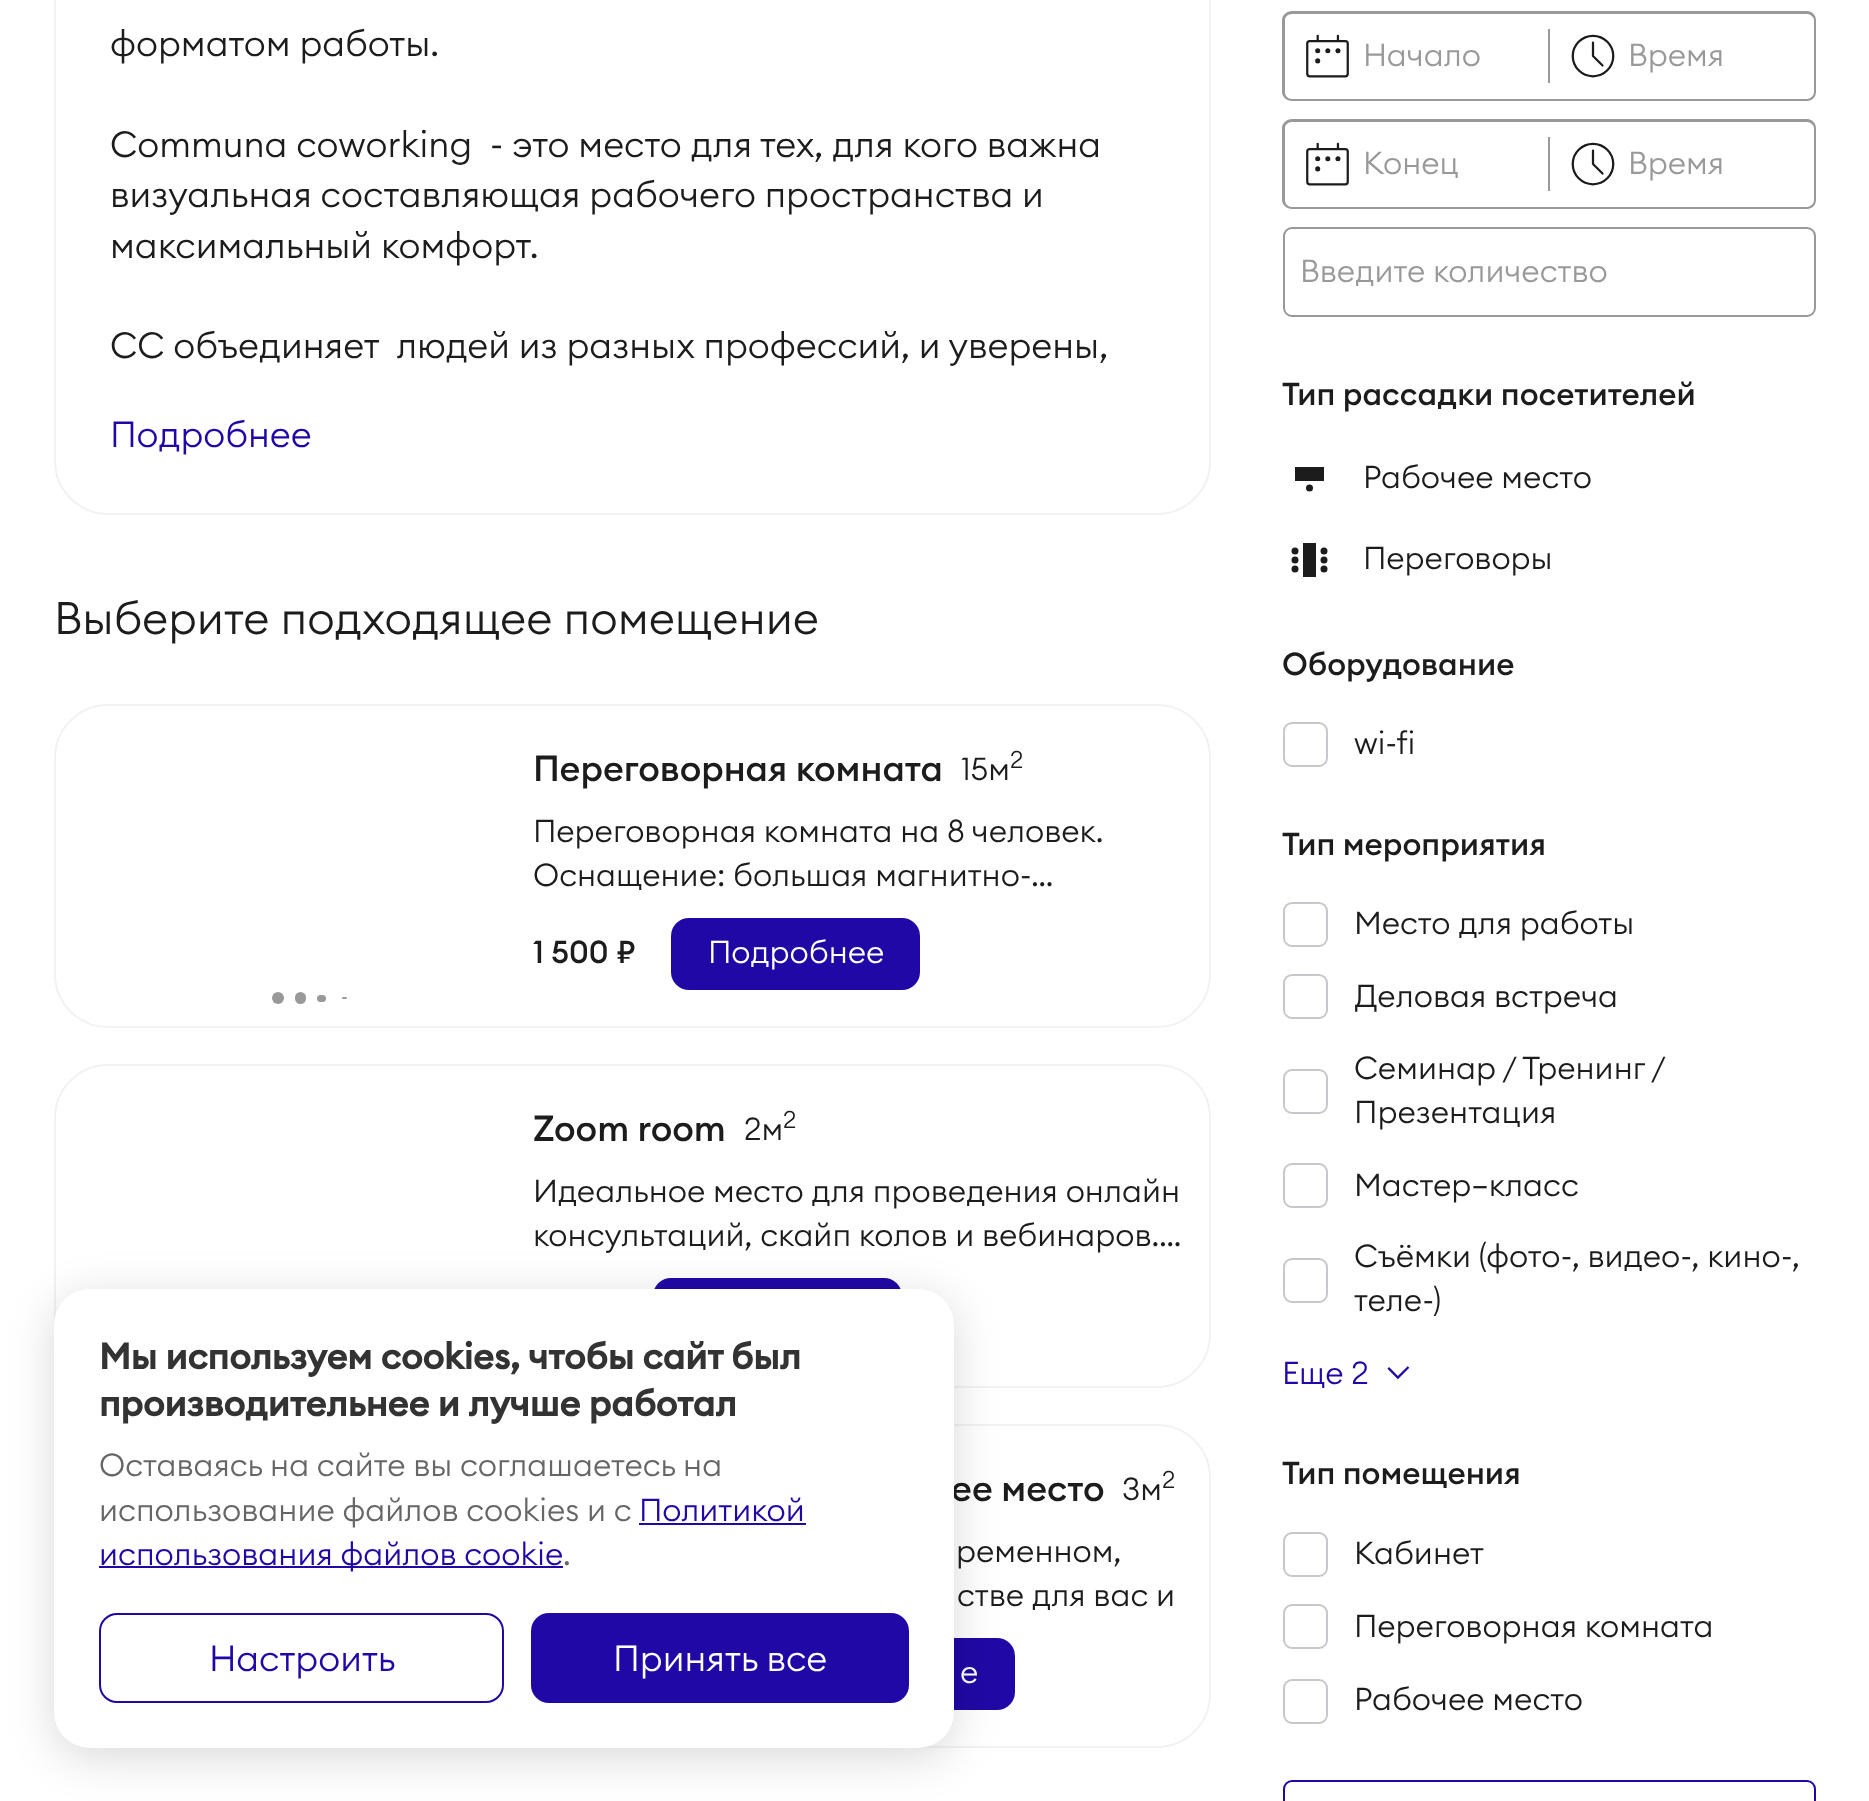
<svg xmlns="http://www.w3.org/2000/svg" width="1869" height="1801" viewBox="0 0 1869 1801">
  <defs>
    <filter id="blur1" x="-50%" y="-200%" width="200%" height="500%"><feGaussianBlur stdDeviation="22.5"/></filter>
  </defs>
  <rect width="100%" height="100%" fill="#ffffff"/>
  <rect x="55" y="-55" width="1155" height="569" rx="53" fill="none" stroke="#f2f2f2" stroke-width="2"/>
  <text x="110" y="56" font-family="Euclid" font-size="36" font-weight="300" fill="#1c1c1c">форматом работы.</text>
  <text x="110" y="157" font-family="Euclid" font-size="36" font-weight="300" fill="#1c1c1c" xml:space="preserve">Communa coworking  - это место для тех, для кого важна</text>
  <text x="110" y="207" font-family="Euclid" font-size="36" font-weight="300" fill="#1c1c1c">визуальная составляющая рабочего пространства и</text>
  <text x="110" y="258" font-family="Euclid" font-size="36" font-weight="300" fill="#1c1c1c">максимальный комфорт.</text>
  <text x="110" y="358" font-family="Euclid" font-size="36" font-weight="300" fill="#1c1c1c" xml:space="preserve">СС объединяет  людей из разных профессий, и уверены,</text>
  <text x="110" y="447" font-family="Euclid" font-size="36" font-weight="300" fill="#1f08a5">Подробнее</text>
  <text x="54" y="634" font-family="Euclid" font-size="45" font-weight="300" fill="#1c1c1c">Выберите подходящее помещение</text>
  <rect x="55" y="705" width="1155" height="322" rx="53" fill="none" stroke="#f2f2f2" stroke-width="2"/>
  <text x="533" y="781" font-family="Euclid" font-size="36" font-weight="500" fill="#1c1c1c">Переговорная комната</text>
  <text x="961" y="780" font-family="Euclid" font-size="31.5" font-weight="300" fill="#1c1c1c">15м</text>
  <text x="1010" y="768" font-family="Euclid" font-size="24" font-weight="300" fill="#1c1c1c">2</text>
  <text x="533" y="842" font-family="Euclid" font-size="31.5" font-weight="300" fill="#1c1c1c">Переговорная комната на 8 человек.</text>
  <text x="533" y="886" font-family="Euclid" font-size="31.5" font-weight="300" fill="#1c1c1c">Оснащение: большая магнитно-…</text>
  <text x="533" y="963" font-family="Euclid" font-size="31.5" font-weight="500" fill="#1c1c1c">1 500 ₽</text>
  <rect x="671" y="918" width="249" height="72" rx="18" fill="#1f08a5"/>
  <text x="708" y="963" font-family="Euclid" font-size="31.5" font-weight="300" fill="#ffffff">Подробнее</text>
  <circle cx="278" cy="998" r="6" fill="#999999"/>
  <rect x="295" y="992" width="11" height="12" rx="5.5" fill="#999999"/>
  <rect x="317" y="995" width="9" height="7" rx="3.5" fill="#999999"/>
  <rect x="342" y="997" width="5" height="2" rx="1" fill="#999999"/>
  <rect x="55" y="1065" width="1155" height="322" rx="53" fill="none" stroke="#f2f2f2" stroke-width="2"/>
  <text x="533" y="1141" font-family="Euclid" font-size="36" font-weight="500" fill="#1c1c1c">Zoom room</text>
  <text x="744" y="1140" font-family="Euclid" font-size="31.5" font-weight="300" fill="#1c1c1c">2м</text>
  <text x="783" y="1128" font-family="Euclid" font-size="24" font-weight="300" fill="#1c1c1c">2</text>
  <text x="533" y="1202" font-family="Euclid" font-size="31.5" font-weight="300" fill="#1c1c1c">Идеальное место для проведения онлайн</text>
  <text x="533" y="1246" font-family="Euclid" font-size="31.5" font-weight="300" fill="#1c1c1c">консультаций, скайп колов и вебинаров.…</text>
  <rect x="653" y="1278" width="249" height="72" rx="18" fill="#1f08a5"/>
  <rect x="55" y="1425" width="1155" height="322" rx="53" fill="none" stroke="#f2f2f2" stroke-width="2"/>
  <text x="951" y="1501" font-family="Euclid" font-size="36" font-weight="500" fill="#1c1c1c">ее место</text>
  <text x="1122" y="1500" font-family="Euclid" font-size="31.5" font-weight="300" fill="#1c1c1c">3м</text>
  <text x="1162" y="1488" font-family="Euclid" font-size="24" font-weight="300" fill="#1c1c1c">2</text>
  <text x="956" y="1562" font-family="Euclid" font-size="31.5" font-weight="300" fill="#1c1c1c">ременном,</text>
  <text x="957" y="1606" font-family="Euclid" font-size="31.5" font-weight="300" fill="#1c1c1c">стве для вас и</text>
  <rect x="765" y="1638" width="250" height="72" rx="18" fill="#1f08a5"/>
  <text x="960" y="1683" font-family="Euclid" font-size="31.5" font-weight="300" fill="#ffffff">е</text>
  <image x="1306" y="34" width="43" height="44" href="img1.png"/>
  <path d="M1292 11H1548V101H1292C1287 101 1282 97 1282 92V20C1282 15 1287 11 1292 11ZM1292 14H1548V99H1292C1288 99 1285 96 1285 92V20C1285 17 1288 14 1292 14Z" fill="#999999" fill-rule="evenodd"/>
  <text x="1363" y="66" font-family="Euclid" font-size="31.5" font-weight="300" fill="#999999">Начало</text>
  <path d="M1548 11H1807C1812 11 1816 15 1816 20V92C1816 97 1812 101 1807 101H1548ZM1548 14H1807C1810 14 1814 17 1814 20V92C1814 96 1810 99 1807 99H1548Z" fill="#999999" fill-rule="evenodd"/>
  <rect x="1548" y="29" width="2" height="54" fill="#999999"/>
  <image x="1571" y="34" width="44" height="44" href="img2.png"/>
  <text x="1628" y="66" font-family="Euclid" font-size="31.5" font-weight="300" fill="#999999">Время</text>
  <image x="1306" y="142" width="43" height="44" href="img1.png"/>
  <path d="M1292 119H1548V209H1292C1287 209 1282 205 1282 200V128C1282 123 1287 119 1292 119ZM1292 122H1548V207H1292C1288 207 1285 204 1285 200V128C1285 125 1288 122 1292 122Z" fill="#999999" fill-rule="evenodd"/>
  <text x="1363" y="174" font-family="Euclid" font-size="31.5" font-weight="300" fill="#999999">Конец</text>
  <path d="M1548 119H1807C1812 119 1816 123 1816 128V200C1816 205 1812 209 1807 209H1548ZM1548 122H1807C1810 122 1814 125 1814 128V200C1814 204 1810 207 1807 207H1548Z" fill="#999999" fill-rule="evenodd"/>
  <rect x="1548" y="137" width="2" height="54" fill="#999999"/>
  <image x="1571" y="142" width="44" height="44" href="img2.png"/>
  <text x="1628" y="174" font-family="Euclid" font-size="31.5" font-weight="300" fill="#999999">Время</text>
  <rect x="1284" y="228" width="531" height="88" rx="8" fill="none" stroke="#999999" stroke-width="2"/>
  <text x="1300" y="282" font-family="Euclid" font-size="31.5" font-weight="300" fill="#999999">Введите количество</text>
  <text x="1282" y="405" font-family="Euclid" font-size="31.5" font-weight="500" fill="#1c1c1c">Тип рассадки посетителей</text>
  <circle cx="1309.5" cy="488" r="3.5" fill="#1c1c1c"/>
  <rect x="1295" y="467" width="29" height="14" fill="#1c1c1c"/>
  <text x="1363" y="488" font-family="Euclid" font-size="31.5" font-weight="300" fill="#1c1c1c">Рабочее место</text>
  <rect x="1303" y="543" width="13" height="34" fill="#1c1c1c"/>
  <circle cx="1295" cy="560" r="3.5" fill="#1c1c1c"/>
  <circle cx="1295" cy="569" r="3.5" fill="#1c1c1c"/>
  <circle cx="1295" cy="551" r="3.5" fill="#1c1c1c"/>
  <circle cx="1324" cy="560" r="3.5" fill="#1c1c1c"/>
  <circle cx="1324" cy="569" r="3.5" fill="#1c1c1c"/>
  <circle cx="1324" cy="551" r="3.5" fill="#1c1c1c"/>
  <text x="1363" y="569" font-family="Euclid" font-size="31.5" font-weight="300" fill="#1c1c1c">Переговоры</text>
  <text x="1282" y="675" font-family="Euclid" font-size="31.5" font-weight="500" fill="#1c1c1c">Оборудование</text>
  <rect x="1284" y="723" width="43" height="43" rx="8" fill="none" stroke="#c8c7cc" stroke-width="2"/>
  <text x="1354" y="754" font-family="Euclid" font-size="31.5" font-weight="300" fill="#1c1c1c">wi-fi</text>
  <text x="1282" y="855" font-family="Euclid" font-size="31.5" font-weight="500" fill="#1c1c1c">Тип мероприятия</text>
  <rect x="1284" y="903" width="43" height="43" rx="8" fill="none" stroke="#c8c7cc" stroke-width="2"/>
  <text x="1354" y="934" font-family="Euclid" font-size="31.5" font-weight="300" fill="#1c1c1c">Место для работы</text>
  <rect x="1284" y="975" width="43" height="43" rx="8" fill="none" stroke="#c8c7cc" stroke-width="2"/>
  <text x="1354" y="1007" font-family="Euclid" font-size="31.5" font-weight="300" fill="#1c1c1c">Деловая встреча</text>
  <rect x="1284" y="1070" width="43" height="43" rx="8" fill="none" stroke="#c8c7cc" stroke-width="2"/>
  <text x="1354" y="1079" word-spacing="-0.5" font-family="Euclid" font-size="31.5" font-weight="300" fill="#1c1c1c">Семинар / Тренинг /</text>
  <text x="1354" y="1123" font-family="Euclid" font-size="31.5" font-weight="300" fill="#1c1c1c">Презентация</text>
  <rect x="1284" y="1164" width="43" height="43" rx="8" fill="none" stroke="#c8c7cc" stroke-width="2"/>
  <text x="1354" y="1196" font-family="Euclid" font-size="31.5" font-weight="300" fill="#1c1c1c">Мастер—класс</text>
  <rect x="1284" y="1259" width="43" height="43" rx="8" fill="none" stroke="#c8c7cc" stroke-width="2"/>
  <text x="1354" y="1267" font-family="Euclid" font-size="31.5" font-weight="300" fill="#1c1c1c">Съёмки (фото-, видео-, кино-,</text>
  <text x="1354" y="1311" font-family="Euclid" font-size="31.5" font-weight="300" fill="#1c1c1c">теле-)</text>
  <text x="1282" y="1384" font-family="Euclid" font-size="31.5" font-weight="300" fill="#1f08a5">Еще 2</text>
  <image x="1387" y="1366" width="23" height="14" href="img3.png"/>
  <text x="1282" y="1484" font-family="Euclid" font-size="31.5" font-weight="500" fill="#1c1c1c">Тип помещения</text>
  <rect x="1284" y="1533" width="43" height="43" rx="8" fill="none" stroke="#c8c7cc" stroke-width="2"/>
  <text x="1354" y="1564" font-family="Euclid" font-size="31.5" font-weight="300" fill="#1c1c1c">Кабинет</text>
  <rect x="1284" y="1605" width="43" height="43" rx="8" fill="none" stroke="#c8c7cc" stroke-width="2"/>
  <text x="1354" y="1637" font-family="Euclid" font-size="31.5" font-weight="300" fill="#1c1c1c">Переговорная комната</text>
  <rect x="1284" y="1680" width="43" height="43" rx="8" fill="none" stroke="#c8c7cc" stroke-width="2"/>
  <text x="1354" y="1710" font-family="Euclid" font-size="31.5" font-weight="300" fill="#1c1c1c">Рабочее место</text>
  <rect x="1284" y="1781" width="531" height="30" rx="8" fill="none" stroke="#1f08a5" stroke-width="2"/>
  <rect x="54" y="1298" width="900" height="459" rx="36" fill="#000000" fill-opacity="0.15" filter="url(#blur1)"/>
  <rect x="54" y="1289" width="900" height="459" rx="36" fill="#ffffff"/>
  <text x="99" y="1369" font-family="Euclid" font-size="36" font-weight="bold" fill="#333333">Мы используем cookies, чтобы сайт был</text>
  <text x="99" y="1416" font-family="Euclid" font-size="36" font-weight="bold" fill="#333333">производительнее и лучше работал</text>
  <text x="99" y="1476" font-family="Euclid" font-size="31.5" font-weight="300" fill="#666666">Оставаясь на сайте вы соглашаетесь на</text>
  <text x="99" y="1521" font-family="Euclid" font-size="31.5" font-weight="300" fill="#666666">использование файлов cookies и c</text>
  <text x="639" y="1521" font-family="Euclid" font-size="31.5" font-weight="300" fill="#1f08a5">Политикой</text>
  <rect x="639" y="1523" width="167" height="2" fill="#1f08a5"/>
  <rect x="99" y="1566" width="464" height="2" fill="#1f08a5"/>
  <text x="99" y="1565" font-family="Euclid" font-size="31.5" font-weight="300" fill="#1f08a5">использования файлов cookie</text>
  <text x="563" y="1565" font-family="Euclid" font-size="31.5" font-weight="300" fill="#666666">.</text>
  <rect x="100" y="1614" width="403" height="88" rx="17" fill="none" stroke="#1f08a5" stroke-width="2"/>
  <text x="209" y="1671" font-family="Euclid" font-size="36" font-weight="300" fill="#1f08a5">Настроить</text>
  <rect x="531" y="1613" width="378" height="90" rx="18" fill="#1f08a5"/>
  <text x="613" y="1671" font-family="Euclid" font-size="36" font-weight="300" fill="#ffffff">Принять все</text>
</svg>
